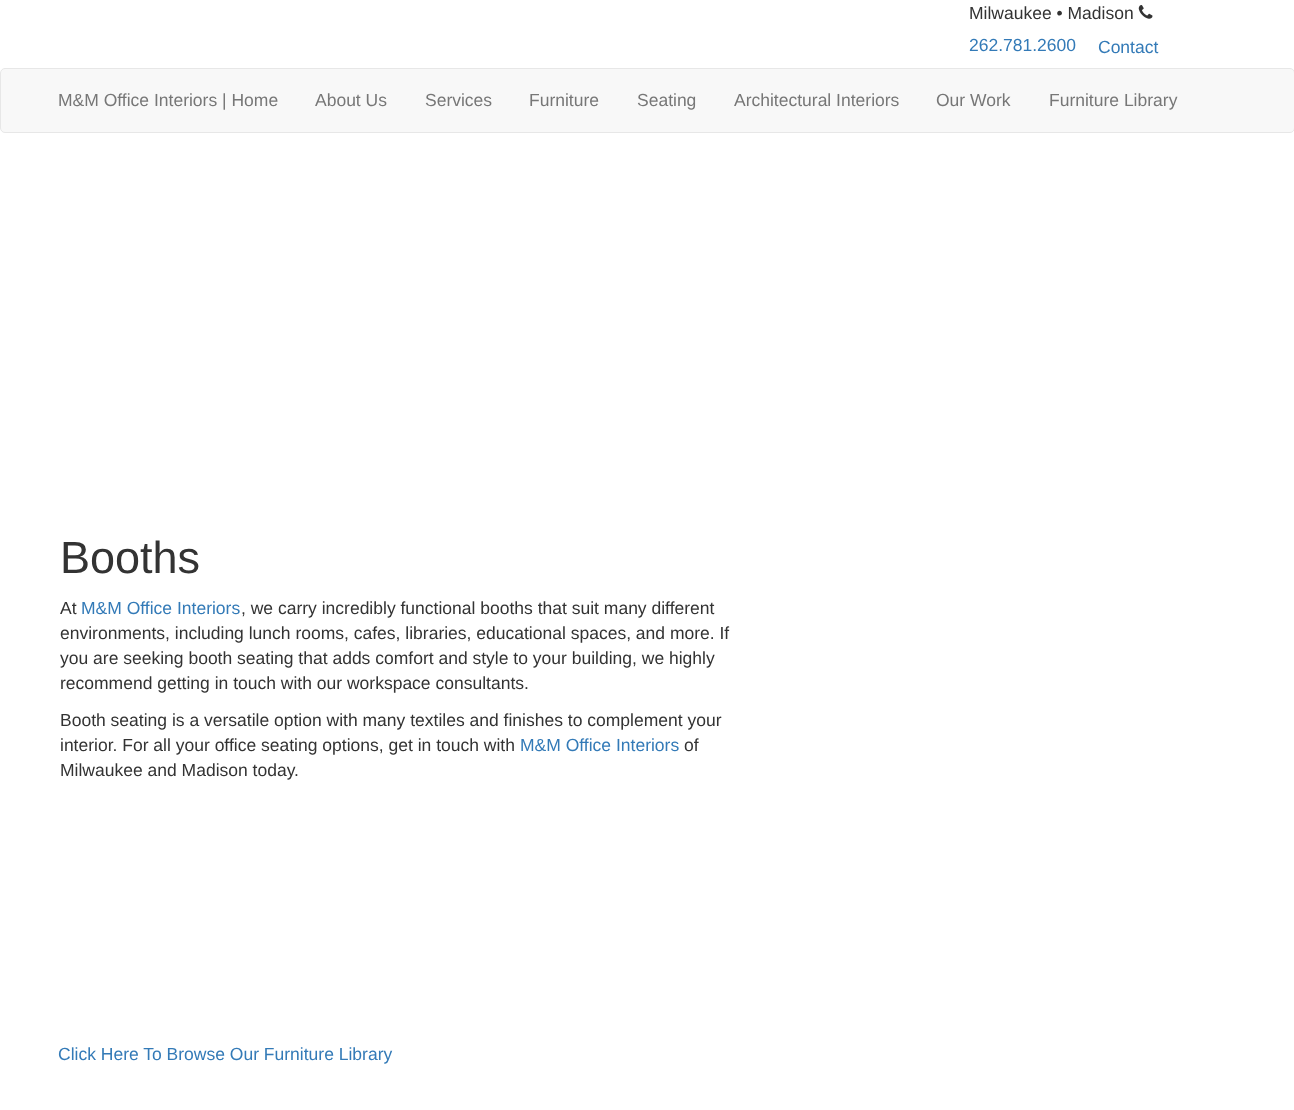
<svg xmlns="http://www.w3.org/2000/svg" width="1294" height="1110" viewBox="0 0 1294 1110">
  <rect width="100%" height="100%" fill="#ffffff"/>
  <text x="969" y="19" font-family="Liberation Sans" font-size="17.5" fill="#333333">Milwaukee • Madison</text>
  <image x="1138" y="5" width="15" height="14" href="img1.png"/>
  <text x="969" y="51" font-family="Liberation Sans" font-size="17.5" fill="#337ab7">262.781.2600</text>
  <text x="1098" y="53" font-family="Liberation Sans" font-size="17.5" fill="#337ab7">Contact</text>
  <rect x="0.5" y="68.5" width="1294" height="64" rx="4.5" fill="#f8f8f8" stroke="#e7e7e7"/>
  <text x="58" y="106" font-family="Liberation Sans" font-size="17.5" fill="#777777">M&amp;M Office Interiors | Home</text>
  <text x="315" y="106" font-family="Liberation Sans" font-size="17.5" fill="#777777">About Us</text>
  <text x="425" y="106" font-family="Liberation Sans" font-size="17.5" fill="#777777">Services</text>
  <text x="529" y="106" font-family="Liberation Sans" font-size="17.5" fill="#777777">Furniture</text>
  <text x="637" y="106" font-family="Liberation Sans" font-size="17.5" fill="#777777">Seating</text>
  <text x="734" y="106" font-family="Liberation Sans" font-size="17.5" fill="#777777">Architectural Interiors</text>
  <text x="936" y="106" font-family="Liberation Sans" font-size="17.5" fill="#777777">Our Work</text>
  <text x="1049" y="106" font-family="Liberation Sans" font-size="17.5" fill="#777777">Furniture Library</text>
  <text x="60" y="573" font-family="Liberation Sans" font-size="45" fill="#333333">Booths</text>
  <text x="60" y="614" font-family="Liberation Sans" font-size="17.5" fill="#333333">At</text>
  <text x="81" y="614" font-family="Liberation Sans" font-size="17.5" fill="#337ab7">M&amp;M Office Interiors</text>
  <text x="241" y="614" font-family="Liberation Sans" font-size="17.5" fill="#333333">, we carry incredibly functional booths that suit many different</text>
  <text x="60" y="639" font-family="Liberation Sans" font-size="17.5" fill="#333333">environments, including lunch rooms, cafes, libraries, educational spaces, and more. If</text>
  <text x="60" y="664" font-family="Liberation Sans" font-size="17.5" fill="#333333">you are seeking booth seating that adds comfort and style to your building, we highly</text>
  <text x="60" y="689" font-family="Liberation Sans" font-size="17.5" fill="#333333">recommend getting in touch with our workspace consultants.</text>
  <text x="60" y="726" font-family="Liberation Sans" font-size="17.5" fill="#333333">Booth seating is a versatile option with many textiles and finishes to complement your</text>
  <text x="60" y="751" font-family="Liberation Sans" font-size="17.5" fill="#333333">interior. For all your office seating options, get in touch with</text>
  <text x="520" y="751" font-family="Liberation Sans" font-size="17.5" fill="#337ab7">M&amp;M Office Interiors</text>
  <text x="684" y="751" font-family="Liberation Sans" font-size="17.5" fill="#333333">of</text>
  <text x="60" y="776" font-family="Liberation Sans" font-size="17.5" fill="#333333">Milwaukee and Madison today.</text>
  <text x="58" y="1060" font-family="Liberation Sans" font-size="17.5" fill="#337ab7">Click Here To Browse Our Furniture Library</text>
</svg>
